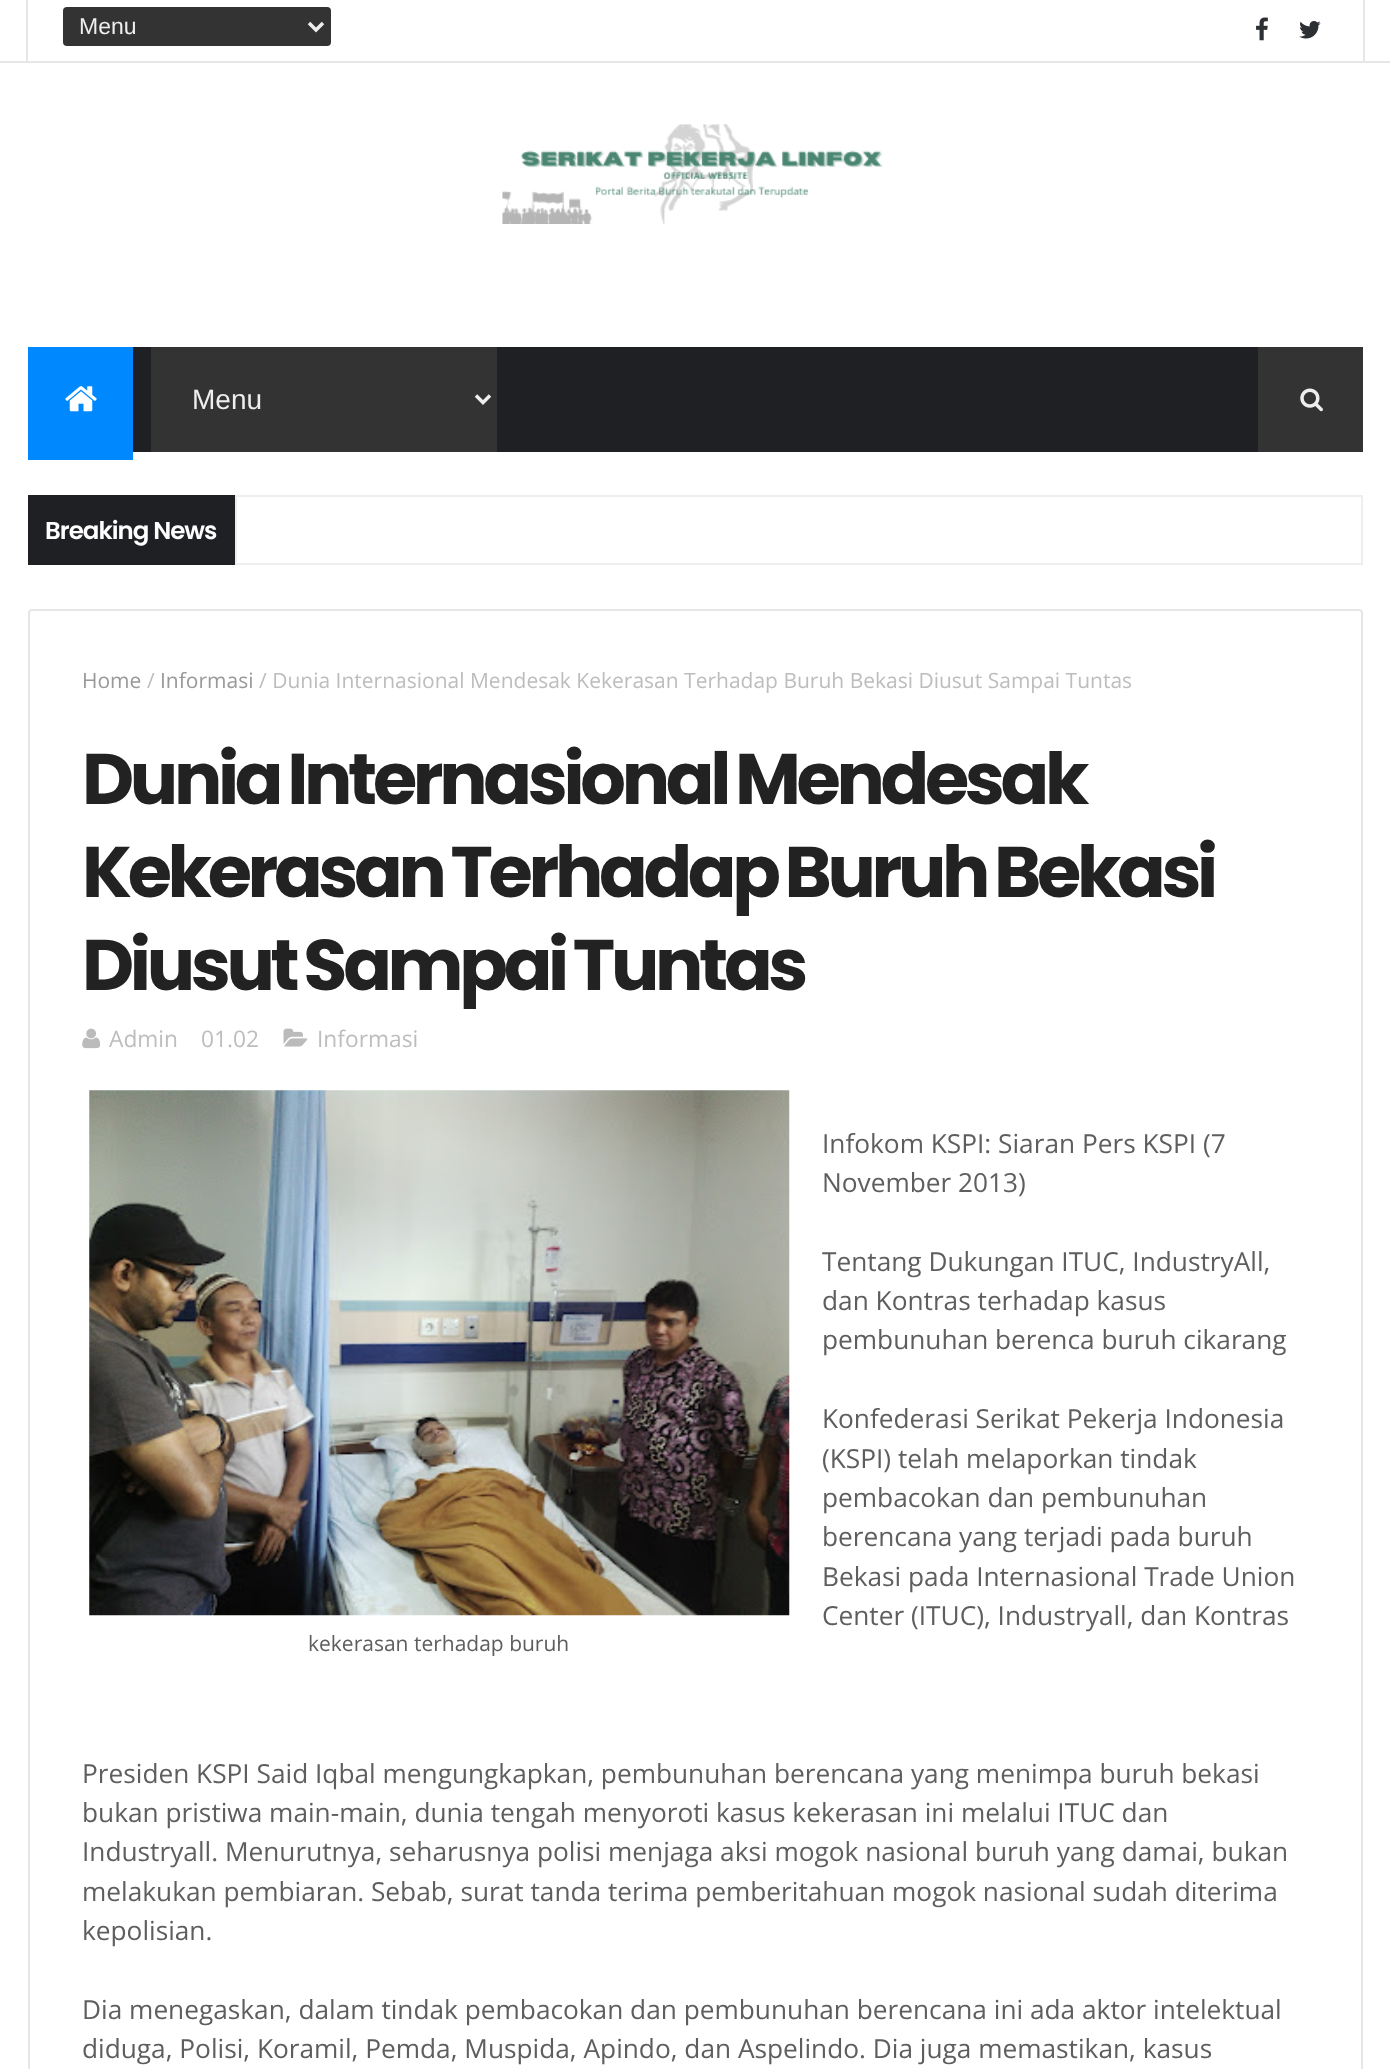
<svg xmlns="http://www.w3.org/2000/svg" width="1390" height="2069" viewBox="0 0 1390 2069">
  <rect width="100%" height="100%" fill="#ffffff"/>
  <rect x="0" y="61" width="1390" height="2" fill="#e6e6e6"/>
  <rect x="1363" y="0" width="2" height="61" fill="#e6e6e6"/>
  <rect x="26" y="0" width="2" height="61" fill="#e6e6e6"/>
  <rect x="63" y="7" width="268" height="39" rx="4" fill="#333333"/>
  <path d="M309 23L316 30L323 23" fill="none" stroke="#eeeeee" stroke-width="3.5"/>
  <text x="79" y="34" font-family="Liberation Sans" font-size="23" fill="#eeeeee">Menu</text>
  <image x="1256" y="17" width="12" height="24" href="img1.png"/>
  <image x="1299" y="21" width="22" height="18" href="img2.png"/>
  <image x="502" y="124" width="381" height="100" href="img3.png"/>
  <rect x="133" y="347" width="1125" height="105" fill="#1f2024"/>
  <rect x="28" y="347" width="105" height="113" fill="#0088ff"/>
  <image x="65" y="386" width="32" height="26" href="img4.png"/>
  <rect x="151" y="347" width="346" height="105" fill="#333333"/>
  <path d="M476 395.5L483 402.5L490 395.5" fill="none" stroke="#eeeeee" stroke-width="3.5"/>
  <text x="192" y="409" font-family="Liberation Sans" font-size="28" fill="#eeeeee">Menu</text>
  <rect x="1258" y="347" width="105" height="105" fill="#333333"/>
  <image x="1300" y="388" width="23" height="24" href="img5.png"/>
  <rect x="28" y="495" width="207" height="70" fill="#1f2024"/>
  <text x="45" y="539" font-family="Poppins" font-size="24.5" font-weight="600" letter-spacing="-1" fill="#ffffff">Breaking News</text>
  <rect x="236" y="496" width="1126" height="68" fill="none" stroke="#eeeeee" stroke-width="2"/>
  <rect x="29" y="610" width="1333" height="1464" rx="3" fill="none" stroke="#e6e6e6" stroke-width="2"/>
  <text x="82" y="688" font-family="Open Sans" font-size="21" fill="#999999">Home</text>
  <text x="147" y="688" font-family="Open Sans" font-size="21" fill="#bdbdbd">/</text>
  <text x="160" y="688" font-family="Open Sans" font-size="21" fill="#999999">Informasi</text>
  <text x="259" y="688" font-family="Open Sans" font-size="21" fill="#bdbdbd">/ Dunia Internasional Mendesak Kekerasan Terhadap Buruh Bekasi Diusut Sampai Tuntas</text>
  <text x="82" y="804" word-spacing="-3" font-family="Poppins" font-size="71.75" font-weight="bold" letter-spacing="-4.3" fill="#222222">Dunia Internasional Mendesak</text>
  <text x="82" y="897" word-spacing="-3" font-family="Poppins" font-size="71.75" font-weight="bold" letter-spacing="-4.3" fill="#222222">Kekerasan Terhadap Buruh Bekasi</text>
  <text x="82" y="990" word-spacing="-3" font-family="Poppins" font-size="71.75" font-weight="bold" letter-spacing="-4.3" fill="#222222">Diusut Sampai Tuntas</text>
  <image x="82" y="1028" width="19" height="21" href="img6.png"/>
  <text x="109" y="1047" font-family="Open Sans" font-size="22.75" fill="#bdbdbd">Admin</text>
  <text x="201" y="1047" font-family="Open Sans" font-size="22.75" fill="#bdbdbd">01.02</text>
  <image x="283" y="1028" width="25" height="19" href="img7.png"/>
  <text x="317" y="1047" font-family="Open Sans" font-size="22.75" fill="#bdbdbd">Informasi</text>
  <text x="822" y="1153" font-family="Open Sans" font-size="26.25" fill="#5e5e5e">Infokom KSPI: Siaran Pers KSPI (7</text>
  <text x="822" y="1192" font-family="Open Sans" font-size="26.25" fill="#5e5e5e">November 2013)</text>
  <text x="822" y="1271" font-family="Open Sans" font-size="26.25" fill="#5e5e5e">Tentang Dukungan ITUC, IndustryAll,</text>
  <text x="822" y="1310" font-family="Open Sans" font-size="26.25" fill="#5e5e5e">dan Kontras terhadap kasus</text>
  <text x="822" y="1349" font-family="Open Sans" font-size="26.25" fill="#5e5e5e">pembunuhan berenca buruh cikarang</text>
  <text x="822" y="1428" font-family="Open Sans" font-size="26.25" fill="#5e5e5e">Konfederasi Serikat Pekerja Indonesia</text>
  <text x="822" y="1468" font-family="Open Sans" font-size="26.25" fill="#5e5e5e">(KSPI) telah melaporkan tindak</text>
  <text x="822" y="1507" font-family="Open Sans" font-size="26.25" fill="#5e5e5e">pembacokan dan pembunuhan</text>
  <text x="822" y="1546" font-family="Open Sans" font-size="26.25" fill="#5e5e5e">berencana yang terjadi pada buruh</text>
  <text x="822" y="1586" font-family="Open Sans" font-size="26.25" fill="#5e5e5e">Bekasi pada Internasional Trade Union</text>
  <text x="822" y="1625" font-family="Open Sans" font-size="26.25" fill="#5e5e5e">Center (ITUC), Industryall, dan Kontras</text>
  <image x="89" y="1090" width="701" height="526" href="img8.png"/>
  <text x="308" y="1651" font-family="Open Sans" font-size="21" fill="#5e5e5e">kekerasan terhadap buruh</text>
  <text x="82" y="1783" font-family="Open Sans" font-size="26.25" fill="#5e5e5e">Presiden KSPI Said Iqbal mengungkapkan, pembunuhan berencana yang menimpa buruh bekasi</text>
  <text x="82" y="1822" font-family="Open Sans" font-size="26.25" fill="#5e5e5e">bukan pristiwa main-main, dunia tengah menyoroti kasus kekerasan ini melalui ITUC dan</text>
  <text x="82" y="1861" font-family="Open Sans" font-size="26.25" fill="#5e5e5e">Industryall. Menurutnya, seharusnya polisi menjaga aksi mogok nasional buruh yang damai, bukan</text>
  <text x="82" y="1901" font-family="Open Sans" font-size="26.25" fill="#5e5e5e">melakukan pembiaran. Sebab, surat tanda terima pemberitahuan mogok nasional sudah diterima</text>
  <text x="82" y="1940" font-family="Open Sans" font-size="26.25" fill="#5e5e5e">kepolisian.</text>
  <text x="82" y="2019" font-family="Open Sans" font-size="26.25" fill="#5e5e5e">Dia menegaskan, dalam tindak pembacokan dan pembunuhan berencana ini ada aktor intelektual</text>
  <text x="82" y="2058" font-family="Open Sans" font-size="26.25" fill="#5e5e5e">diduga, Polisi, Koramil, Pemda, Muspida, Apindo, dan Aspelindo. Dia juga memastikan, kasus</text>
</svg>
